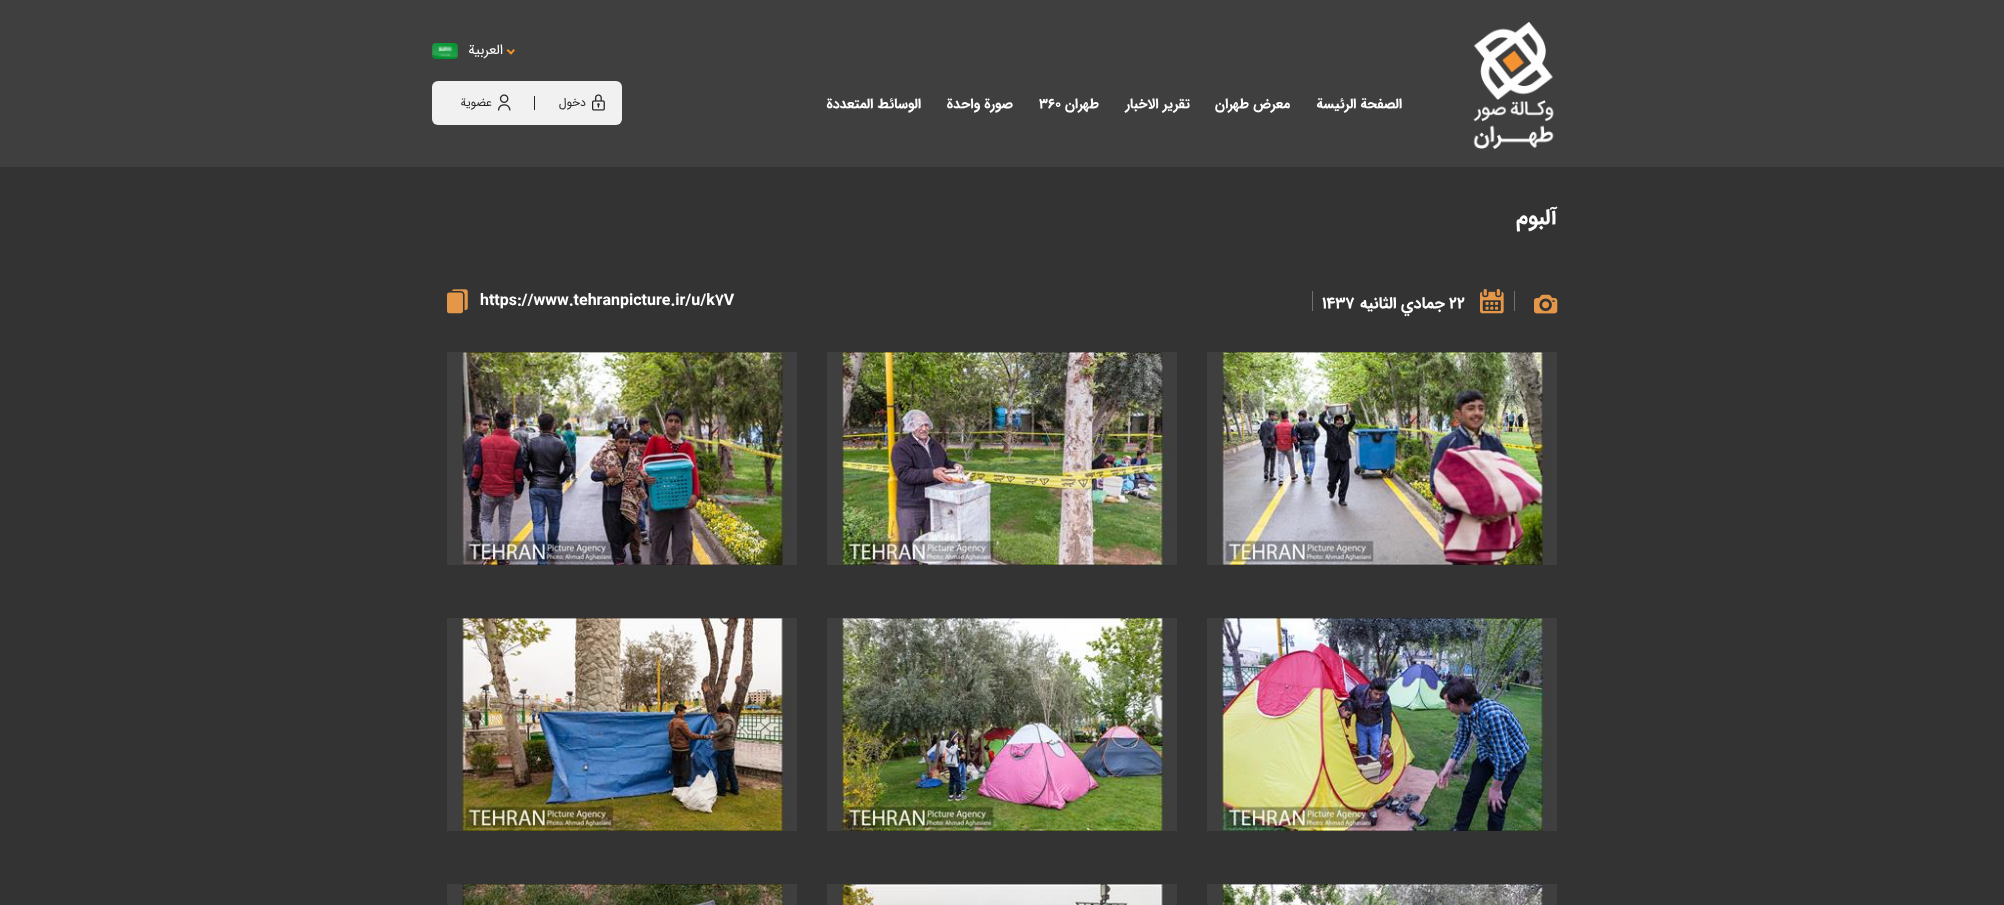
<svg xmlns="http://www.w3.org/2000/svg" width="2004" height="905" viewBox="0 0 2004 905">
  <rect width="100%" height="100%" fill="#333333"/>
  <rect x="0" y="0" width="2004" height="167" fill="#3f3f3f"/>
  <image x="1473" y="22" width="81" height="127" href="img1.png"/>
  <path d="M513.5 49L515 50.5L511 54.5L509.5 53.5Z" fill="#f79325"/>
  <path d="M508 49L512.5 53.5L511 54.5L506.5 50.5Z" fill="#f79325"/>
  <text x="503" y="54" font-family="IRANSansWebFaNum" font-size="14" direction="rtl" fill="#ffffff">العربية</text>
  <image x="432" y="43" width="26" height="16" href="img2.png"/>
  <text x="1402" y="108" font-family="IRANSansWebFaNum" font-size="14" font-weight="bold" direction="rtl" fill="#ffffff">الصفحة الرئيسة</text>
  <text x="1290" y="108" font-family="IRANSansWebFaNum" font-size="14" font-weight="bold" direction="rtl" fill="#ffffff">معرض طهران</text>
  <text x="1190" y="108" font-family="IRANSansWebFaNum" font-size="14" font-weight="bold" direction="rtl" fill="#ffffff">تقرير الاخبار</text>
  <text x="1099" y="108" font-family="IRANSansWebFaNum" font-size="14" font-weight="bold" direction="rtl" fill="#ffffff">طهران</text>
  <text x="1039" y="108" font-family="IRANSansWebFaNum" font-size="14" font-weight="bold" fill="#ffffff">360</text>
  <text x="1013" y="108" font-family="IRANSansWebFaNum" font-size="14" font-weight="bold" direction="rtl" fill="#ffffff">صورة واحدة</text>
  <text x="921" y="108" font-family="IRANSansWebFaNum" font-size="14" font-weight="bold" direction="rtl" fill="#ffffff">الوسائط المتعددة</text>
  <rect x="432" y="81" width="190" height="44" rx="6" fill="#f2f1f1"/>
  <image x="592" y="94" width="13" height="17" href="img3.png"/>
  <text x="586" y="106" font-family="IRANSansWebFaNum" font-size="12" direction="rtl" fill="#262626">دخول</text>
  <rect x="534" y="96" width="1" height="14" fill="#262626"/>
  <image x="498" y="94" width="13" height="17" href="img4.png"/>
  <text x="492" y="106" font-family="IRANSansWebFaNum" font-size="12" direction="rtl" fill="#262626">عضوية</text>
  <text x="1557" y="224" font-family="IRANSansWebFaNum" font-size="22" font-weight="bold" direction="rtl" fill="#ffffff">آلبوم</text>
  <image x="1534" y="294" width="24" height="20" href="img5.png"/>
  <rect x="1514" y="291" width="1" height="20" fill="#707070"/>
  <image x="1480" y="289" width="24" height="25" href="img6.png"/>
  <text x="1449" y="308" font-family="IRANSansWebFaNum" font-size="16" font-weight="bold" fill="#ffffff">٢٢</text>
  <text x="1445" y="308" font-family="IRANSansWebFaNum" font-size="16" font-weight="bold" direction="rtl" fill="#ffffff">جمادي الثانيه</text>
  <text x="1322" y="308" font-family="IRANSansWebFaNum" font-size="16" font-weight="bold" fill="#ffffff">١٤٣٧</text>
  <rect x="1312" y="291" width="1" height="20" fill="#707070"/>
  <text x="480" y="305" font-family="IRANSansWebFaNum" font-size="16" font-weight="bold" fill="#ffffff">https://www.tehranpicture.ir/u/k7V</text>
  <image x="447" y="289" width="21" height="25" href="img7.png"/>
  <rect x="1207" y="352" width="350" height="213" fill="#3f3f3f"/>
  <image x="1221" y="352" width="331" height="213" href="img8.png"/>
  <rect x="827" y="352" width="350" height="213" fill="#3f3f3f"/>
  <image x="841" y="352" width="331" height="213" href="img9.png"/>
  <rect x="447" y="352" width="350" height="213" fill="#3f3f3f"/>
  <image x="462" y="352" width="330" height="213" href="img10.png"/>
  <rect x="1207" y="618" width="350" height="213" fill="#3f3f3f"/>
  <image x="1221" y="618" width="330" height="213" href="img11.png"/>
  <rect x="827" y="618" width="350" height="213" fill="#3f3f3f"/>
  <image x="841" y="618" width="330" height="213" href="img12.png"/>
  <rect x="447" y="618" width="350" height="213" fill="#3f3f3f"/>
  <image x="461" y="618" width="330" height="213" href="img13.png"/>
  <rect x="1207" y="884" width="350" height="21" fill="#3f3f3f"/>
  <image x="1222" y="884" width="322" height="21" href="img14.png"/>
  <rect x="827" y="884" width="350" height="21" fill="#3f3f3f"/>
  <image x="841" y="884" width="323" height="21" href="img15.png"/>
  <rect x="447" y="884" width="350" height="21" fill="#3f3f3f"/>
  <image x="462" y="884" width="329" height="21" href="img16.png"/>
</svg>
